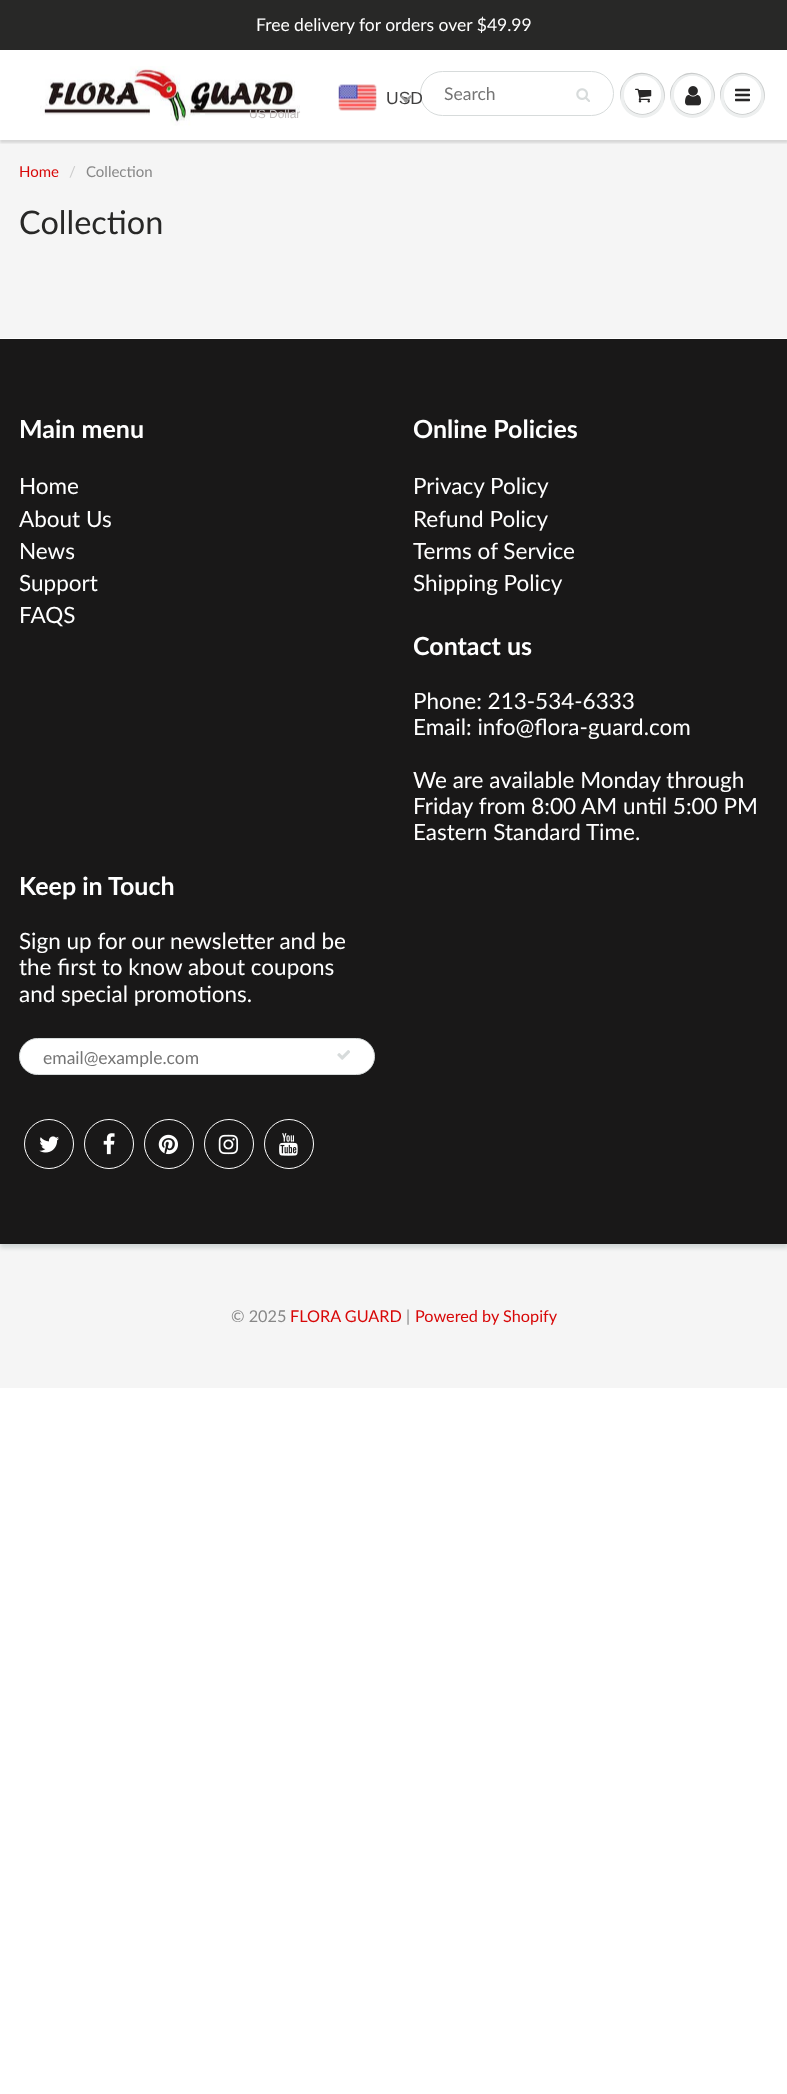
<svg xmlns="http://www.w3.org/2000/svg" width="787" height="2094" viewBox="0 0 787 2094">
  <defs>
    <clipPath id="clip1"><rect x="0" y="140" width="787" height="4"/></clipPath>
    <filter id="blur1" x="-50%" y="-200%" width="200%" height="500%"><feGaussianBlur stdDeviation="1"/></filter>
    <filter id="blur2" x="-50%" y="-200%" width="200%" height="500%"><feGaussianBlur stdDeviation="2"/></filter>
  </defs>
  <rect width="100%" height="100%" fill="#ffffff"/>
  <rect x="0" y="0" width="787" height="50" fill="#282827"/>
  <text x="256" y="31" font-family="Lato" font-size="17.5" fill="#ffffff">Free delivery for orders over $49.99</text>
  <rect x="0" y="140" width="787" height="198" fill="#f5f5f5"/>
  <g clip-path="url(#clip1)">
    <rect x="0" y="53" width="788" height="90" fill="#0b191c" fill-opacity="0.12" filter="url(#blur1)"/>
  </g>
  <image x="40" y="66" width="260" height="60" href="img1.png"/>
  <image x="338" y="84" width="39" height="27" href="img2.png"/>
  <rect x="420.5" y="71.5" width="193" height="44" rx="22" fill="none" stroke="#d7dbdb"/>
  <text x="386" y="104" font-family="Liberation Sans" font-size="17.5" fill="#403f3f">USD</text>
  <path d="M410.5 95L412 96.5L406 103L404 101Z" fill="#999999"/>
  <path d="M401.5 95L407.5 101L406 103L400 96.5Z" fill="#999999"/>
  <text x="249" y="118" font-family="Liberation Sans" font-size="12" fill="#c0bcbc">US Dollar</text>
  <text x="444" y="100" font-family="Lato" font-size="17.5" fill="#757575">Search</text>
  <image x="576" y="88" width="14" height="14" href="img3.png"/>
  <circle cx="642.5" cy="95.5" r="22.5" fill="#edefef"/>
  <path d="M642 74C660 74 667 91 663 104C673 80 639 60 624 83C620 88 619 95 621 101C619 88 626 74 642 74Z" fill="#c9cbcb"/>
  <path d="M661 99C656.5 118.5 628.5 118.5 624 99C627 120 658 120 661 99Z" fill="#c9cbcb"/>
  <rect x="624" y="76" width="37" height="38" rx="18.5" fill="#ffffff"/>
  <path d="M642 78C656 78 662 89.5 660.5 100C661.5 96 661 91 659.5 87.5C651.5 68.5 623.5 74.5 624 96C624 87 630 78 642 78Z" fill="#ffffff"/>
  <image x="635" y="88" width="17" height="15" href="img4.png"/>
  <circle cx="692.5" cy="95.5" r="22.5" fill="#edefef"/>
  <path d="M692 74C710 74 717 91 713 104C723 80 689 60 674 83C670 88 669 95 671 101C669 88 676 74 692 74Z" fill="#c9cbcb"/>
  <path d="M711 99C706.5 118.5 678.5 118.5 674 99C677 120 708 120 711 99Z" fill="#c9cbcb"/>
  <rect x="674" y="76" width="37" height="38" rx="18.5" fill="#ffffff"/>
  <path d="M692 78C706 78 712 89.5 710.5 100C711.5 96 711 91 709.5 87.5C701.5 68.5 673.5 74.5 674 96C674 87 680 78 692 78Z" fill="#ffffff"/>
  <image x="685" y="86" width="17" height="20" href="img5.png"/>
  <circle cx="742.5" cy="95.5" r="22.5" fill="#edefef"/>
  <path d="M742 74C760 74 767 91 763 104C773 80 739 60 724 83C720 88 719 95 721 101C719 88 726 74 742 74Z" fill="#c9cbcb"/>
  <path d="M761 99C756.5 118.5 728.5 118.5 724 99C727 120 758 120 761 99Z" fill="#c9cbcb"/>
  <rect x="724" y="76" width="37" height="38" rx="18.5" fill="#ffffff"/>
  <path d="M742 78C756 78 762 89.5 760.5 100C761.5 96 761 91 759.5 87.5C751.5 68.5 723.5 74.5 724 96C724 87 730 78 742 78Z" fill="#ffffff"/>
  <image x="735" y="88" width="15" height="14" href="img6.png"/>
  <text x="19" y="177" font-family="Lato" font-size="15" fill="#d80808">Home</text>
  <text x="69" y="177" font-family="Lato" font-size="15" fill="#cccccc">/</text>
  <text x="86" y="177" font-family="Lato" font-size="15" fill="#878787">Collection</text>
  <text x="19" y="234" font-family="Lato" font-size="32.5" fill="#282827">Collection</text>
  <rect x="0" y="1244" width="787" height="144" fill="#f5f5f5"/>
  <rect x="0" y="341" width="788" height="907" fill="#d1d7d7" filter="url(#blur2)"/>
  <rect x="0" y="339" width="787" height="905" fill="#191818"/>
  <rect x="0" y="338" width="787" height="1" fill="#ffffff"/>
  <text x="19" y="438" font-family="Lato" font-size="25" font-weight="bold" fill="#ffffff">Main menu</text>
  <text x="19" y="494" font-family="Lato" font-size="22.5" fill="#ffffff">Home</text>
  <text x="19" y="527" font-family="Lato" font-size="22.5" fill="#ffffff">About Us</text>
  <text x="19" y="559" font-family="Lato" font-size="22.5" fill="#ffffff">News</text>
  <text x="19" y="591" font-family="Lato" font-size="22.5" fill="#ffffff">Support</text>
  <text x="19" y="623" font-family="Lato" font-size="22.5" fill="#ffffff">FAQS</text>
  <text x="413" y="438" font-family="Lato" font-size="25" font-weight="bold" fill="#ffffff">Online Policies</text>
  <text x="413" y="494" font-family="Lato" font-size="22.5" fill="#ffffff">Privacy Policy</text>
  <text x="413" y="527" font-family="Lato" font-size="22.5" fill="#ffffff">Refund Policy</text>
  <text x="413" y="559" font-family="Lato" font-size="22.5" fill="#ffffff">Terms of Service</text>
  <text x="413" y="591" font-family="Lato" font-size="22.5" fill="#ffffff">Shipping Policy</text>
  <text x="413" y="655" font-family="Lato" font-size="25" font-weight="bold" fill="#ffffff">Contact us</text>
  <text x="413" y="709" font-family="Lato" font-size="22.5" fill="#ffffff">Phone: 213-534-6333</text>
  <text x="413" y="735" font-family="Lato" font-size="22.5" fill="#ffffff">Email: info@flora-guard.com</text>
  <text x="413" y="788" font-family="Lato" font-size="22.5" fill="#ffffff">We are available Monday through</text>
  <text x="413" y="814" font-family="Lato" font-size="22.5" fill="#ffffff">Friday from 8:00 AM until 5:00 PM</text>
  <text x="413" y="840" font-family="Lato" font-size="22.5" fill="#ffffff">Eastern Standard Time.</text>
  <text x="19" y="895" font-family="Lato" font-size="25" font-weight="bold" fill="#ffffff">Keep in Touch</text>
  <text x="19" y="949" font-family="Lato" font-size="22.5" fill="#ffffff">Sign up for our newsletter and be</text>
  <text x="19" y="975" font-family="Lato" font-size="22.5" fill="#ffffff">the first to know about coupons</text>
  <text x="19" y="1002" font-family="Lato" font-size="22.5" fill="#ffffff">and special promotions.</text>
  <rect x="19.5" y="1038.5" width="355" height="36" rx="18" fill="#ffffff" stroke="#d7dbdb"/>
  <text x="43" y="1064" font-family="Lato" font-size="17.5" fill="#757575">email@example.com</text>
  <image x="337" y="1050" width="13" height="10" href="img7.png"/>
  <circle cx="49" cy="1144" r="24.5" fill="none" stroke="#ffffff"/>
  <image x="39" y="1136" width="20" height="17" href="img8.png"/>
  <circle cx="109" cy="1144" r="24.5" fill="none" stroke="#ffffff"/>
  <image x="103" y="1133" width="12" height="22" href="img9.png"/>
  <circle cx="169" cy="1144" r="24.5" fill="none" stroke="#ffffff"/>
  <image x="158" y="1134" width="20" height="21" href="img10.png"/>
  <circle cx="229" cy="1144" r="24.5" fill="none" stroke="#ffffff"/>
  <image x="218" y="1134" width="21" height="21" href="img11.png"/>
  <circle cx="289" cy="1144" r="24.5" fill="none" stroke="#ffffff"/>
  <image x="279" y="1133" width="19" height="23" href="img12.png"/>
  <text x="231" y="1322" font-family="Lato" font-size="16.25" fill="#878787">© 2025</text>
  <text x="290" y="1322" font-family="Lato" font-size="16.25" fill="#d80808">FLORA GUARD</text>
  <text x="406" y="1322" font-family="Lato" font-size="16.25" fill="#878787">|</text>
  <text x="415" y="1322" font-family="Lato" font-size="16.25" fill="#d80808">Powered by Shopify</text>
</svg>
